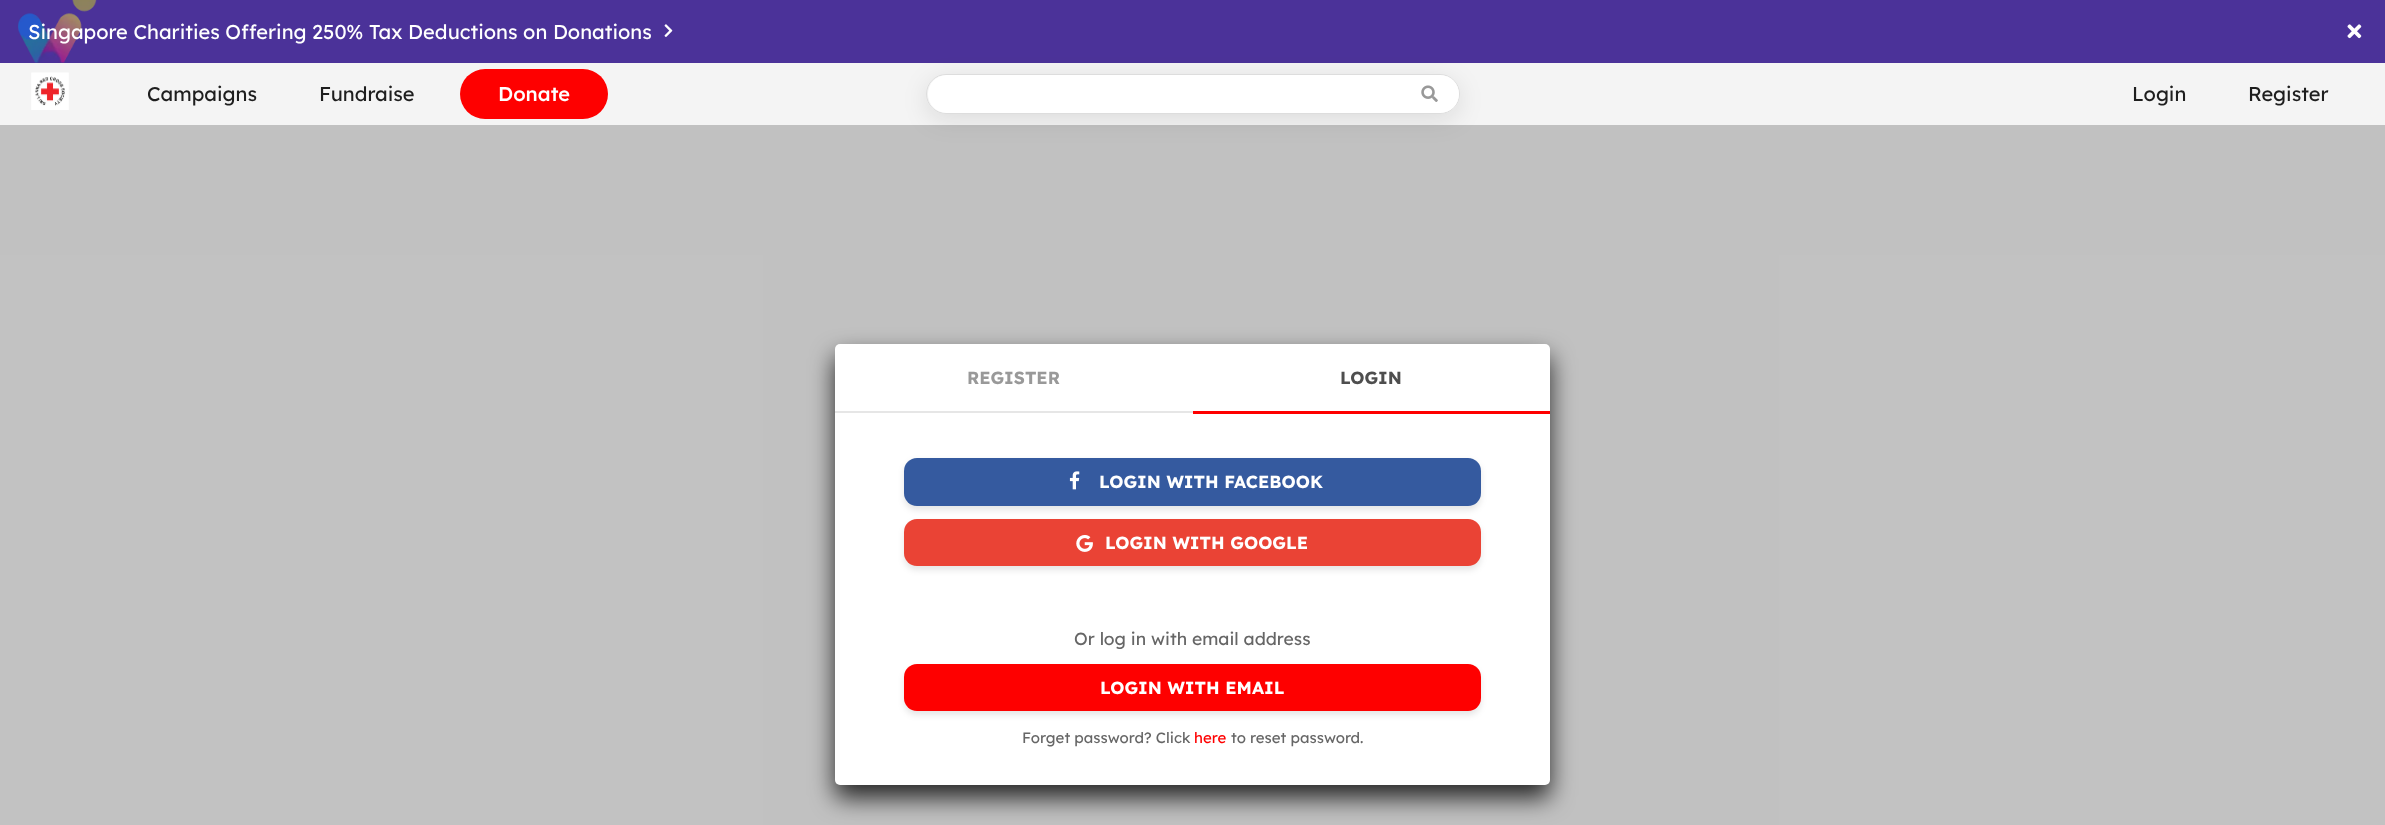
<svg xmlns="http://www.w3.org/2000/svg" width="2385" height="825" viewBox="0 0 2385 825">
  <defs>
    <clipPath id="clip1"><path d="M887 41H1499V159H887ZM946 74H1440C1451 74 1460 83 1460 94C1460 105 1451 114 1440 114H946C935 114 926 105 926 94C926 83 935 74 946 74Z" clip-rule="evenodd"/></clipPath>
    <filter id="blur1" x="-50%" y="-200%" width="200%" height="500%"><feGaussianBlur stdDeviation="12.5"/></filter>
    <filter id="blur2" x="-50%" y="-200%" width="200%" height="500%"><feGaussianBlur stdDeviation="3"/></filter>
  </defs>
  <rect width="100%" height="100%" fill="#ffffff"/>
  <rect x="0" y="0" width="2385" height="63" fill="#4b3299"/>
  <image x="18" y="0" width="79" height="63" href="img1.png"/>
  <text x="28" y="39" font-family="Lexend Deca" font-size="20" fill="#ffffff">Singapore Charities Offering 250% Tax Deductions on Donations</text>
  <image x="664" y="24" width="9" height="13" href="img2.png"/>
  <image x="2347" y="24" width="15" height="15" href="img3.png"/>
  <rect x="0" y="63" width="2385" height="62" fill="#f4f4f4"/>
  <image x="31" y="72" width="38" height="38" href="img4.png"/>
  <text x="147" y="101" font-family="Lexend Deca" font-size="20" fill="#1e1e1e">Campaigns</text>
  <text x="319" y="101" font-family="Lexend Deca" font-size="20" fill="#1e1e1e">Fundraise</text>
  <rect x="460" y="69" width="148" height="50" rx="25" fill="#fe0000"/>
  <text x="498" y="101" font-family="Lexend Deca" font-size="20" font-weight="500" fill="#ffffff">Donate</text>
  <g clip-path="url(#clip1)">
    <rect x="926" y="80" width="534" height="40" rx="20" fill="#000000" fill-opacity="0.1" filter="url(#blur1)"/>
  </g>
  <rect x="926.5" y="74.5" width="533" height="39" rx="19.5" fill="none" stroke="#dddddd"/>
  <path d="M947 75H1406V113H947C936.5 113 928 104.5 928 94C928 83.5 936.5 75 947 75Z" fill="#ffffff"/>
  <path d="M1406 75H1440C1450.5 75 1459 83.5 1459 94C1459 104.5 1450.5 113 1440 113H1406Z" fill="#ffffff"/>
  <image x="1421" y="85" width="17" height="17" href="img5.png"/>
  <text x="2132" y="101" font-family="Lexend Deca" font-size="20" fill="#1e1e1e">Login</text>
  <text x="2248" y="101" font-family="Lexend Deca" font-size="20" fill="#1e1e1e">Register</text>
  <rect x="0" y="125" width="2385" height="700" fill="#333333" fill-opacity="0.3"/>
  <rect x="835" y="356" width="715" height="442" rx="5" fill="#000000" fill-opacity="0.8" filter="url(#blur1)"/>
  <rect x="835" y="344" width="715" height="441" rx="5" fill="#ffffff"/>
  <rect x="835" y="411" width="358" height="2" fill="#e6e6e6"/>
  <text x="967" y="384" font-family="Lexend Deca" font-size="17.5" font-weight="bold" fill="#999999">REGISTER</text>
  <text x="1340" y="384" font-family="Lexend Deca" font-size="17.5" font-weight="bold" fill="#4e4e4e">LOGIN</text>
  <rect x="1193" y="411" width="357" height="3" fill="#fe0000"/>
  <rect x="904" y="461" width="577" height="49" rx="13" fill="#000000" fill-opacity="0.1" filter="url(#blur2)"/>
  <rect x="904" y="458" width="577" height="48" rx="13" fill="#355a9f"/>
  <image x="1069" y="471" width="11" height="19" href="img6.png"/>
  <text x="1099" y="488" font-family="Lexend Deca" font-size="17.5" font-weight="bold" fill="#ffffff">LOGIN WITH FACEBOOK</text>
  <rect x="904" y="523" width="577" height="47" rx="13" fill="#000000" fill-opacity="0.1" filter="url(#blur2)"/>
  <rect x="904" y="519" width="577" height="47" rx="13" fill="#ea4335"/>
  <image x="1076" y="535" width="17" height="17" href="img7.png"/>
  <text x="1105" y="549" font-family="Lexend Deca" font-size="17.5" font-weight="bold" fill="#ffffff">LOGIN WITH GOOGLE</text>
  <text x="1074" y="645" font-family="Lexend Deca" font-size="17.5" fill="#666666">Or log in with email address</text>
  <rect x="904" y="668" width="577" height="47" rx="13" fill="#000000" fill-opacity="0.1" filter="url(#blur2)"/>
  <rect x="904" y="664" width="577" height="47" rx="13" fill="#fe0000"/>
  <text x="1100" y="694" font-family="Lexend Deca" font-size="17.5" font-weight="bold" fill="#ffffff">LOGIN WITH EMAIL</text>
  <text x="1022" y="743" font-family="Lexend Deca" font-size="15" fill="#666666">Forget password? Click</text>
  <text x="1194" y="743" font-family="Lexend Deca" font-size="15" fill="#fe0000">here</text>
  <text x="1231" y="743" font-family="Lexend Deca" font-size="15" fill="#666666">to reset password.</text>
</svg>
